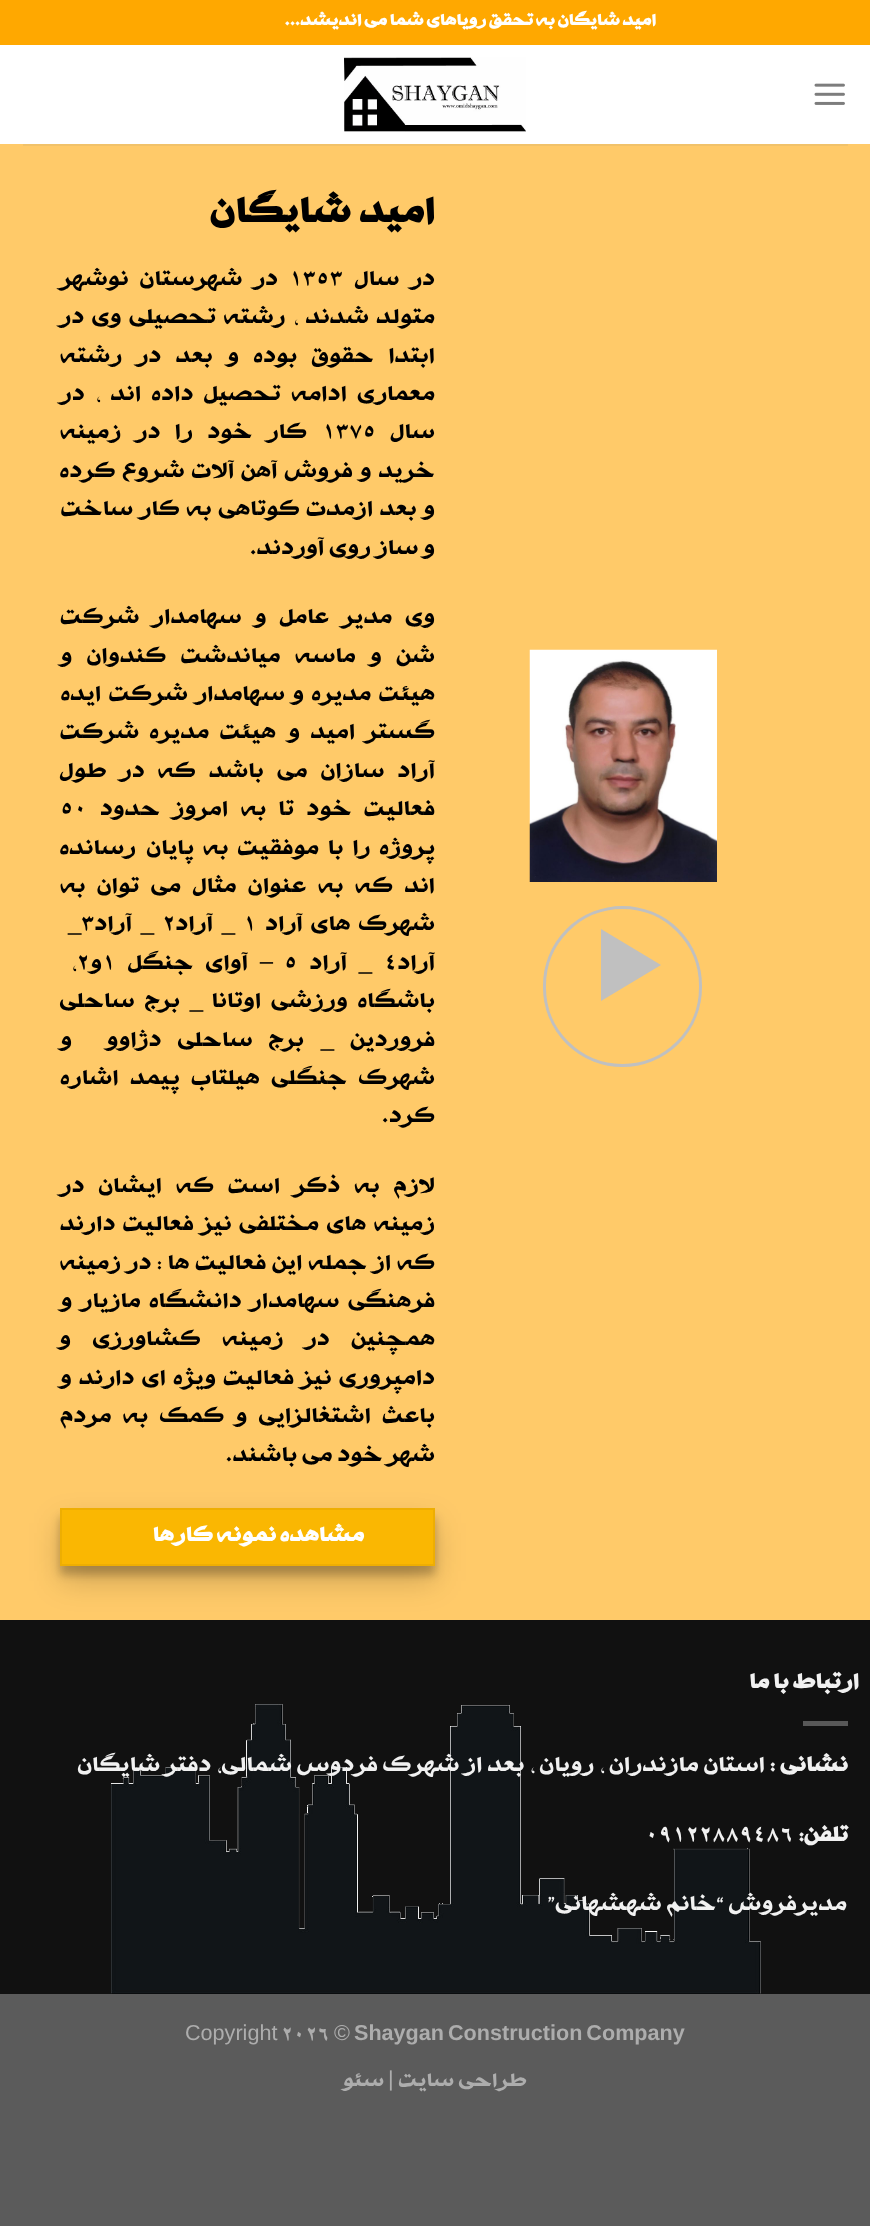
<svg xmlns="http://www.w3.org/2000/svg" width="870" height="2226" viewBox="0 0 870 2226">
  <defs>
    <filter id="blur1" x="-50%" y="-200%" width="200%" height="500%"><feGaussianBlur stdDeviation="4.5"/></filter>
    <filter id="blur2" x="-50%" y="-200%" width="200%" height="500%"><feGaussianBlur stdDeviation="15"/></filter>
  </defs>
  <rect width="100%" height="100%" fill="#5b5b5b"/>
  <rect x="0" y="45" width="870" height="99" fill="#ffffff"/>
  <rect x="0" y="0" width="870" height="45" fill="#ffa800"/>
  <text x="656" y="25" word-spacing="-1" font-family="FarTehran" font-size="18" font-weight="bold" letter-spacing="0.9" direction="rtl" fill="#ffffff">امید شایگان به تحقق رویاهای شما می اندیشد...</text>
  <image x="814" y="83" width="31" height="22" href="img1.png"/>
  <image x="344" y="57" width="182" height="75" href="img2.png"/>
  <rect x="0" y="144" width="870" height="1476" fill="#ffca69"/>
  <rect x="23" y="144" width="825" height="2" fill="#f1c26a"/>
  <image x="529" y="649" width="188" height="233" href="img3.png"/>
  <rect x="544.5" y="907.5" width="156" height="158" rx="78" fill="none" stroke="#c0c0c0" stroke-width="3"/>
  <path d="M601 929L661 965L601 1001Z" fill="#c0c0c0"/>
  <text x="435" y="222" font-family="FarTehran" font-size="40.75" font-weight="bold" direction="rtl" fill="#000000">امید شایگان</text>
  <text x="435" y="285" word-spacing="6" font-family="FarTehran" font-size="24" direction="rtl" fill="#000000">در سال</text>
  <text x="289" y="285" font-family="FarTehran" font-size="24" fill="#000000">۱۳۵۳</text>
  <text x="278" y="285" word-spacing="6" font-family="FarTehran" font-size="24" direction="rtl" fill="#000000">در شهرستان نوشهر</text>
  <text x="435" y="323" word-spacing="2.5" font-family="FarTehran" font-size="24" direction="rtl" fill="#000000">متولد شدند ، رشته تحصیلی وی در</text>
  <text x="435" y="362" word-spacing="9.5" font-family="FarTehran" font-size="24" direction="rtl" fill="#000000">ابتدا حقوق بوده و بعد در رشته</text>
  <text x="435" y="400" word-spacing="5.5" font-family="FarTehran" font-size="24" direction="rtl" fill="#000000">معماری ادامه تحصیل داده اند ، در</text>
  <text x="435" y="438" font-family="FarTehran" font-size="24" direction="rtl" fill="#000000">سال</text>
  <text x="322" y="438" font-family="FarTehran" font-size="24" fill="#000000">۱۳۷۵</text>
  <text x="307" y="438" word-spacing="9.5" font-family="FarTehran" font-size="24" direction="rtl" fill="#000000">کار خود را در زمینه</text>
  <text x="435" y="477" word-spacing="2" font-family="FarTehran" font-size="24" direction="rtl" fill="#000000">خرید و فروش آهن آلات شروع کرده</text>
  <text x="435" y="515" word-spacing="1.5" font-family="FarTehran" font-size="24" direction="rtl" fill="#000000">و بعد ازمدت کوتاهی به کار ساخت</text>
  <text x="435" y="554" font-family="FarTehran" font-size="24" direction="rtl" fill="#000000">و ساز روی آوردند.</text>
  <text x="435" y="623" word-spacing="8" font-family="FarTehran" font-size="24" direction="rtl" fill="#000000">وی مدیر عامل و سهامدار شرکت</text>
  <text x="435" y="662" word-spacing="9.5" font-family="FarTehran" font-size="24" direction="rtl" fill="#000000">شن و ماسه میاندشت کندوان و</text>
  <text x="435" y="700" word-spacing="2.5" font-family="FarTehran" font-size="24" direction="rtl" fill="#000000">هیئت مدیره و سهامدار شرکت ایده</text>
  <text x="435" y="738" word-spacing="5.5" font-family="FarTehran" font-size="24" direction="rtl" fill="#000000">گستر امید و</text>
  <text x="276" y="738" word-spacing="5.5" font-family="FarTehran" font-size="24" direction="rtl" fill="#000000">هیئت مدیره شرکت</text>
  <text x="435" y="777" word-spacing="8.25" font-family="FarTehran" font-size="24" direction="rtl" fill="#000000">آراد سازان می باشد که در طول</text>
  <text x="435" y="815" word-spacing="7.5" font-family="FarTehran" font-size="24" direction="rtl" fill="#000000">فعالیت خود تا به امروز حدود</text>
  <text x="60" y="815" font-family="FarTehran" font-size="24" fill="#000000">۵۰</text>
  <text x="435" y="854" word-spacing="4" font-family="FarTehran" font-size="24" direction="rtl" fill="#000000">پروژه را با موفقیت به پایان</text>
  <text x="136" y="854" font-family="FarTehran" font-size="24" direction="rtl" fill="#000000">رسانده</text>
  <text x="435" y="892" word-spacing="6.5" font-family="FarTehran" font-size="24" direction="rtl" fill="#000000">اند که به عنوان مثال می توان به</text>
  <text x="435" y="930" word-spacing="3" font-family="FarTehran" font-size="24" direction="rtl" fill="#000000">شهرک های آراد</text>
  <text x="243" y="930" font-family="FarTehran" font-size="24" fill="#000000">۱</text>
  <text x="213" y="930" font-family="FarTehran" font-size="24" direction="rtl" fill="#000000">آراد</text>
  <text x="162" y="930" font-family="FarTehran" font-size="24" fill="#000000">۲</text>
  <text x="132" y="930" font-family="FarTehran" font-size="24" direction="rtl" fill="#000000">آراد</text>
  <text x="81" y="930" font-family="FarTehran" font-size="24" fill="#000000">۳</text>
  <text x="235" y="930" font-family="Liberation Sans" font-size="24" direction="rtl" fill="#000000">_</text>
  <text x="154" y="930" font-family="Liberation Sans" font-size="24" direction="rtl" fill="#000000">_</text>
  <text x="68" y="930" font-family="Liberation Sans" font-size="24" fill="#000000">_</text>
  <text x="435" y="969" font-family="FarTehran" font-size="24" direction="rtl" fill="#000000">آراد</text>
  <text x="384" y="969" font-family="FarTehran" font-size="24" fill="#000000">۴</text>
  <text x="347" y="969" font-family="FarTehran" font-size="24" direction="rtl" fill="#000000">آراد</text>
  <text x="284" y="969" font-family="FarTehran" font-size="24" fill="#000000">۵</text>
  <text x="273" y="969" font-family="Liberation Sans" font-size="24" direction="rtl" fill="#000000">–</text>
  <text x="248" y="969" word-spacing="7" font-family="FarTehran" font-size="24" direction="rtl" fill="#000000">آوای جنگل</text>
  <text x="102" y="969" font-family="FarTehran" font-size="24" fill="#000000">۱</text>
  <text x="71" y="969" font-family="FarTehran" font-size="24" fill="#000000">،۲</text>
  <text x="102" y="969" font-family="FarTehran" font-size="24" direction="rtl" fill="#000000">و</text>
  <text x="372" y="969" font-family="Liberation Sans" font-size="24" direction="rtl" fill="#000000">_</text>
  <text x="435" y="1007" word-spacing="5" font-family="FarTehran" font-size="24" direction="rtl" fill="#000000">باشگاه ورزشی اوتانا</text>
  <text x="203" y="1007" font-family="Liberation Sans" font-size="24" direction="rtl" fill="#000000">_</text>
  <text x="180" y="1007" word-spacing="5" font-family="FarTehran" font-size="24" direction="rtl" fill="#000000">برج ساحلی</text>
  <text x="435" y="1046" font-family="FarTehran" font-size="24" direction="rtl" fill="#000000">فروردین</text>
  <text x="334" y="1046" font-family="Liberation Sans" font-size="24" direction="rtl" fill="#000000">_</text>
  <text x="304" y="1046" word-spacing="11" font-family="FarTehran" font-size="24" direction="rtl" fill="#000000">برج ساحلی دژاوو</text>
  <text x="72" y="1046" font-family="FarTehran" font-size="24" direction="rtl" fill="#000000">و</text>
  <text x="435" y="1084" word-spacing="6.5" font-family="FarTehran" font-size="24" direction="rtl" fill="#000000">شهرک جنگلی هیلتاب پیمد اشاره</text>
  <text x="435" y="1122" font-family="FarTehran" font-size="24" direction="rtl" fill="#000000">کرد.</text>
  <text x="435" y="1192" word-spacing="9" font-family="FarTehran" font-size="24" direction="rtl" fill="#000000">لازم به ذکر است که ایشان در</text>
  <text x="435" y="1230" word-spacing="2.5" font-family="FarTehran" font-size="24" direction="rtl" fill="#000000">زمینه های مختلفی نیز فعالیت دارند</text>
  <text x="435" y="1269" word-spacing="0.75" font-family="FarTehran" font-size="24" direction="rtl" fill="#000000">که از جمله این فعالیت ها : در زمینه</text>
  <text x="435" y="1307" word-spacing="3.5" font-family="FarTehran" font-size="24" direction="rtl" fill="#000000">فرهنگی سهامدار دانشگاه مازیار و</text>
  <text x="435" y="1345" word-spacing="16.5" font-family="FarTehran" font-size="24" direction="rtl" fill="#000000">همچنین در زمینه کشاورزی و</text>
  <text x="435" y="1384" word-spacing="2.25" font-family="FarTehran" font-size="24" direction="rtl" fill="#000000">دامپروری نیز فعالیت ویژه ای دارند و</text>
  <text x="435" y="1422" word-spacing="6.25" font-family="FarTehran" font-size="24" direction="rtl" fill="#000000">باعث اشتغالزایی و کمک به مردم</text>
  <text x="435" y="1461" font-family="FarTehran" font-size="24" direction="rtl" fill="#000000">شهر خود می باشند.</text>
  <rect x="60" y="1517" width="375" height="58" fill="#000000" fill-opacity="0.22" filter="url(#blur1)"/>
  <rect x="0" y="1620" width="870" height="374" fill="#111111"/>
  <rect x="60" y="1523" width="375" height="58" fill="#000000" fill-opacity="0.19" filter="url(#blur2)"/>
  <rect x="61" y="1509" width="373" height="56" fill="#fab702" stroke="#eeae02" stroke-width="2"/>
  <text x="364" y="1541" word-spacing="-1" font-family="FarTehran" font-size="23.25" font-weight="bold" letter-spacing="0.75" direction="rtl" fill="#ffffff">مشاهده نمونه کارها</text>
  <image x="111" y="1704" width="650" height="290" href="img4.png"/>
  <text x="859" y="1688" word-spacing="-1" font-family="FarTehran" font-size="24" font-weight="bold" letter-spacing="1.25" direction="rtl" fill="#f1f1f1">ارتباط با ما</text>
  <rect x="803" y="1721" width="45" height="5" fill="#585858"/>
  <text x="848" y="1771" font-family="FarTehran" font-size="24" font-weight="bold" direction="rtl" fill="#f1f1f1">نشانی :</text>
  <text x="765" y="1771" font-family="FarTehran" font-size="24" direction="rtl" fill="#f1f1f1">استان مازندران ، رويان ، بعد از شهرك فردوس شمالي، دفتر شايگان</text>
  <text x="848" y="1841" font-family="FarTehran" font-size="24" font-weight="bold" direction="rtl" fill="#f1f1f1">تلفن:</text>
  <text x="645" y="1841" font-family="FarTehran" font-size="24" fill="#f1f1f1">09122889486</text>
  <text x="847" y="1910" font-family="FarTehran" font-size="24" direction="rtl" fill="#f1f1f1">مدیرفروش “خانم شهشهانی”</text>
  <text x="354" y="2040" word-spacing="-2" font-family="Liberation Sans" font-size="21.6" font-weight="bold" fill="#adadad">Shaygan Construction Company</text>
  <text x="334" y="2040" font-family="Liberation Sans" font-size="21.6" fill="#adadad">©</text>
  <text x="281" y="2040" font-family="FarTehran" font-size="21.6" fill="#adadad">2026</text>
  <text x="185" y="2040" font-family="Liberation Sans" font-size="21.6" fill="#adadad">Copyright</text>
  <text x="527" y="2086" font-family="FarTehran" font-size="21.6" direction="rtl" fill="#adadad">طراحی سایت</text>
  <text x="388" y="2086" font-family="Liberation Sans" font-size="21.6" fill="#adadad">|</text>
  <text x="384" y="2086" font-family="FarTehran" font-size="21.6" direction="rtl" fill="#adadad">سئو</text>
</svg>
